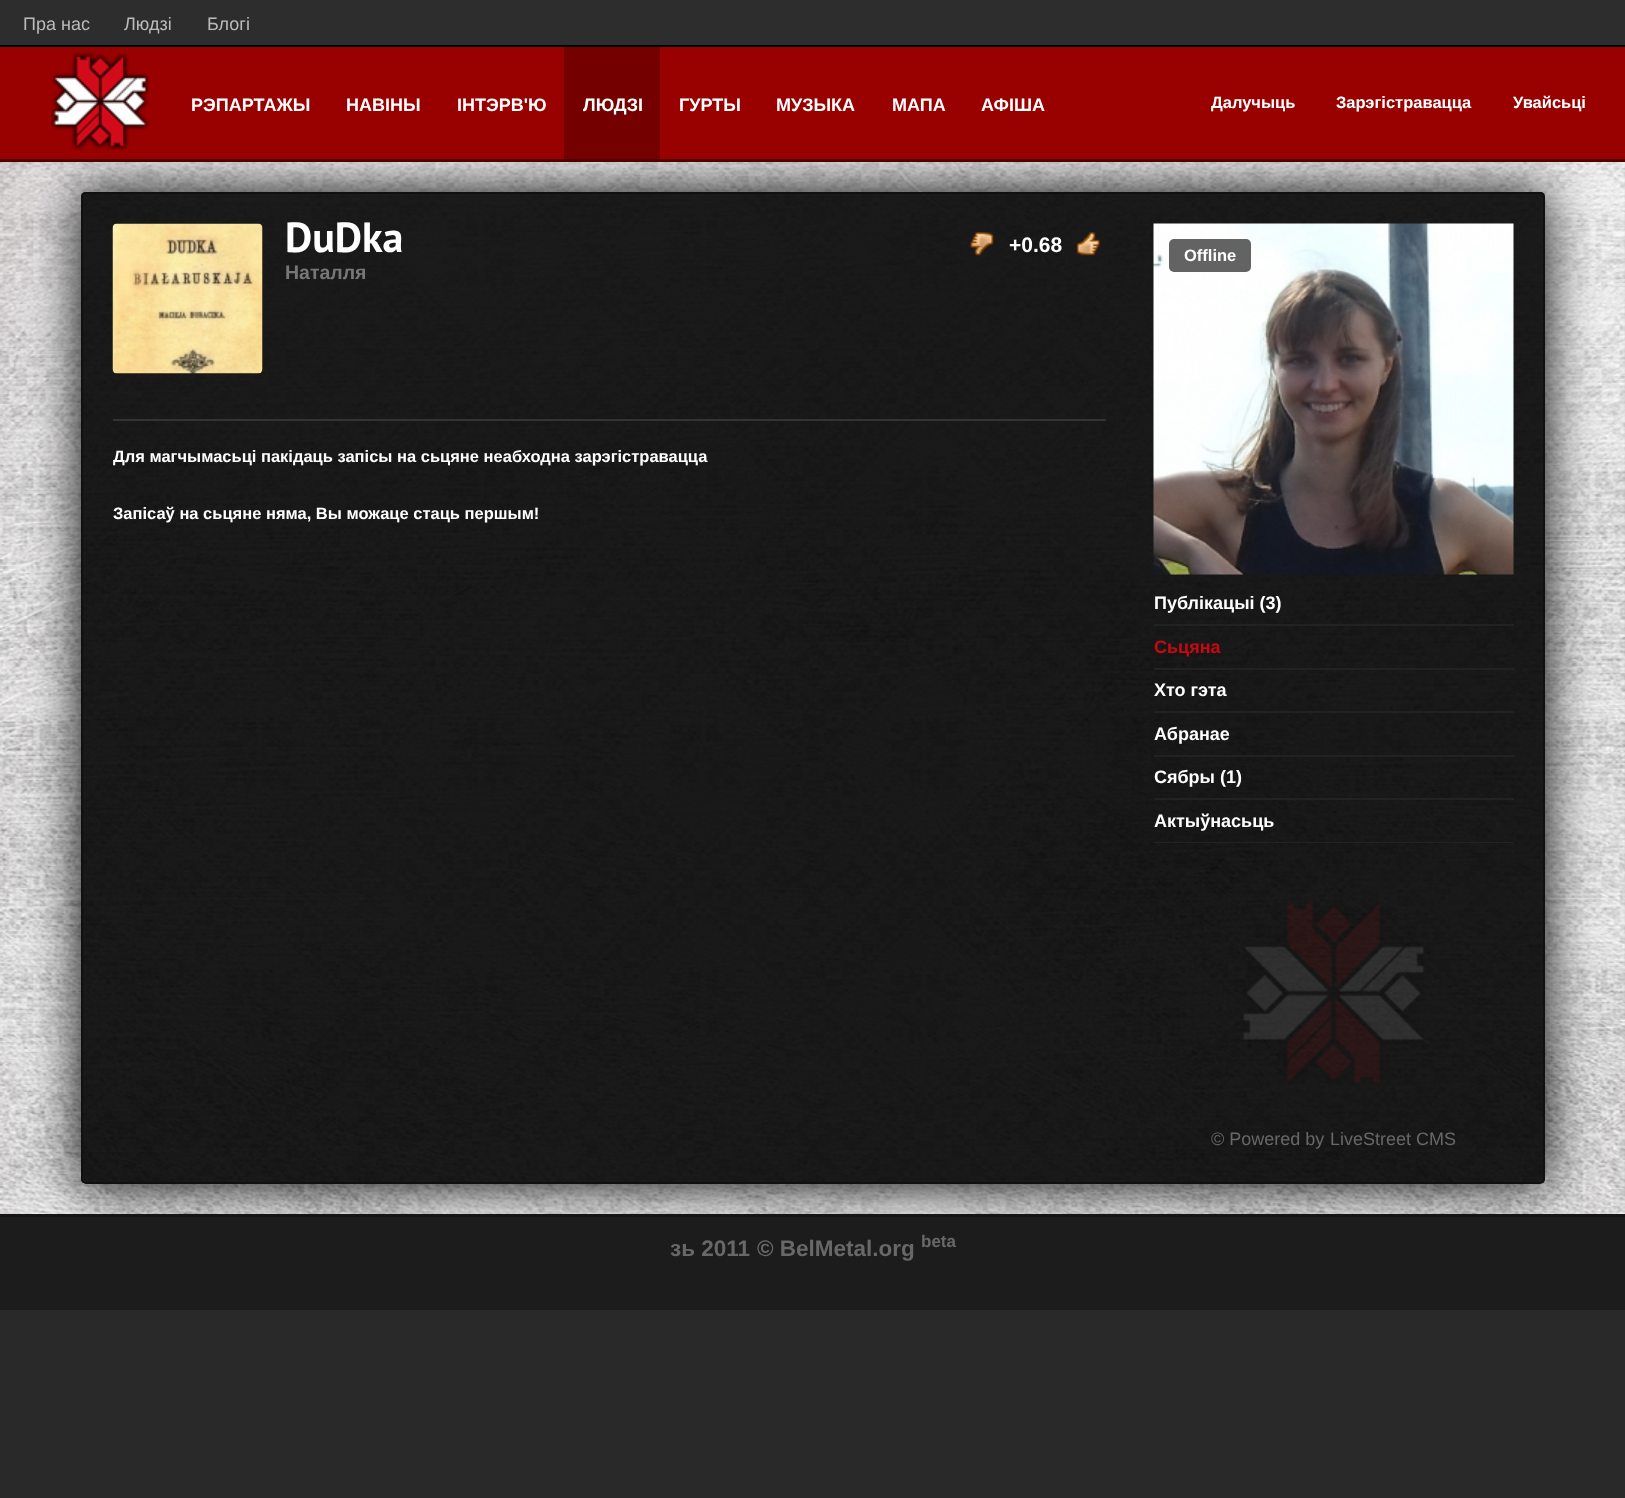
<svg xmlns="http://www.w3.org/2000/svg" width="1625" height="1498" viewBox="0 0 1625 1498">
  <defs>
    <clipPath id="clip1"><path d="M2 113H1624V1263H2ZM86 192H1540C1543 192 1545 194 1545 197V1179C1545 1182 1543 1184 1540 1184H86C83 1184 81 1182 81 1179V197C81 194 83 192 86 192Z" clip-rule="evenodd"/></clipPath>
    <filter id="blur1" x="-50%" y="-200%" width="200%" height="500%"><feGaussianBlur stdDeviation="26"/></filter>
  </defs>
  <rect width="100%" height="100%" fill="#292929"/>
  <image x="0" y="162" width="1625" height="1052" href="img1.png"/>
  <rect x="0" y="0" width="1625" height="45" fill="#2d2d2d"/>
  <rect x="0" y="45" width="1625" height="2" fill="#000000"/>
  <text x="23" y="30" font-family="Liberation Sans" font-size="18" fill="#bbbbbb">Пра нас</text>
  <text x="124" y="30" font-family="Liberation Sans" font-size="18" fill="#bbbbbb">Людзі</text>
  <text x="207" y="30" font-family="Liberation Sans" font-size="18" fill="#bbbbbb">Блогі</text>
  <g clip-path="url(#clip1)">
    <rect x="81" y="192" width="1464" height="992" rx="5" fill="#101010" filter="url(#blur1)"/>
  </g>
  <rect x="0" y="47" width="1625" height="112" fill="#990000"/>
  <rect x="0" y="159" width="1625" height="3" fill="#500000"/>
  <image x="51" y="52" width="99" height="98" href="img2.png"/>
  <text x="191" y="111" font-family="Liberation Sans" font-size="18" font-weight="bold" fill="#ffffff">РЭПАРТАЖЫ</text>
  <text x="346" y="111" font-family="Liberation Sans" font-size="18" font-weight="bold" fill="#ffffff">НАВІНЫ</text>
  <text x="457" y="111" font-family="Liberation Sans" font-size="18" font-weight="bold" fill="#ffffff">ІНТЭРВ'Ю</text>
  <rect x="564" y="47" width="96" height="112" fill="#750000"/>
  <text x="583" y="111" font-family="Liberation Sans" font-size="18" font-weight="bold" fill="#ffffff">ЛЮДЗІ</text>
  <text x="679" y="111" font-family="Liberation Sans" font-size="18" font-weight="bold" fill="#ffffff">ГУРТЫ</text>
  <text x="776" y="111" font-family="Liberation Sans" font-size="18" font-weight="bold" fill="#ffffff">МУЗЫКА</text>
  <text x="892" y="111" font-family="Liberation Sans" font-size="18" font-weight="bold" fill="#ffffff">МАПА</text>
  <text x="981" y="111" font-family="Liberation Sans" font-size="18" font-weight="bold" fill="#ffffff">АФІША</text>
  <text x="1211" y="108" font-family="Liberation Sans" font-size="16.5" font-weight="bold" fill="#ffffff">Далучыць</text>
  <text x="1336" y="108" font-family="Liberation Sans" font-size="16.5" font-weight="bold" fill="#ffffff">Зарэгістравацца</text>
  <text x="1513" y="108" font-family="Liberation Sans" font-size="16.5" font-weight="bold" fill="#ffffff">Увайсьці</text>
  <image x="81" y="192" width="1464" height="992" href="img3.png"/>
  <rect x="82" y="193" width="1462" height="990" rx="4" fill="none" stroke="#101010" stroke-width="2"/>
  <rect x="113" y="419" width="993" height="2" fill="#333333"/>
  <image x="112" y="223" width="151" height="151" href="img4.png"/>
  <text x="285" y="252" font-family="PT Sans" font-size="42" font-weight="bold" fill="#ffffff">DuDka</text>
  <text x="285" y="279" font-family="Liberation Sans" font-size="19.5" font-weight="bold" fill="#777777">Наталля</text>
  <image x="970" y="232" width="24" height="24" href="img5.png"/>
  <text x="1009" y="252" font-family="Liberation Sans" font-size="21" font-weight="bold" fill="#ffffff">+0.68</text>
  <image x="1076" y="232" width="24" height="24" href="img6.png"/>
  <text x="113" y="462" font-family="Liberation Sans" font-size="16.5" font-weight="bold" fill="#ffffff">Для магчымасьці пакідаць запісы на сьцяне неабходна зарэгістравацца</text>
  <text x="113" y="519" font-family="Liberation Sans" font-size="16.5" font-weight="bold" fill="#ffffff">Запісаў на сьцяне няма, Вы можаце стаць першым!</text>
  <image x="1153" y="223" width="361" height="352" href="img7.png"/>
  <rect x="1169" y="239" width="82" height="33" rx="5" fill="#000000" fill-opacity="0.61"/>
  <text x="1184" y="261" font-family="Liberation Sans" font-size="16.5" font-weight="bold" fill="#ffffff">Offline</text>
  <rect x="1154" y="624" width="360" height="2" fill="#222222"/>
  <text x="1154" y="609" font-family="Liberation Sans" font-size="18" font-weight="bold" fill="#ffffff">Публікацыі (3)</text>
  <rect x="1154" y="668" width="360" height="2" fill="#222222"/>
  <text x="1154" y="653" font-family="Liberation Sans" font-size="18" font-weight="bold" fill="#ca0814">Сьцяна</text>
  <rect x="1154" y="711" width="360" height="2" fill="#222222"/>
  <text x="1154" y="696" font-family="Liberation Sans" font-size="18" font-weight="bold" fill="#ffffff">Хто гэта</text>
  <rect x="1154" y="755" width="360" height="2" fill="#222222"/>
  <text x="1154" y="740" font-family="Liberation Sans" font-size="18" font-weight="bold" fill="#ffffff">Абранае</text>
  <rect x="1154" y="798" width="360" height="2" fill="#222222"/>
  <text x="1154" y="783" font-family="Liberation Sans" font-size="18" font-weight="bold" fill="#ffffff">Сябры (1)</text>
  <rect x="1154" y="842" width="360" height="1" fill="#222222"/>
  <text x="1154" y="827" font-family="Liberation Sans" font-size="18" font-weight="bold" fill="#ffffff">Актыўнасьць</text>
  <image x="1243" y="903" width="181" height="180" href="img8.png"/>
  <text x="1211" y="1145" font-family="Liberation Sans" font-size="18" fill="#686868">© Powered by</text>
  <text x="1330" y="1145" font-family="Liberation Sans" font-size="18" fill="#686868">LiveStreet CMS</text>
  <rect x="0" y="1217" width="1625" height="93" fill="#1c1c1c"/>
  <rect x="0" y="1214" width="1625" height="3" fill="#151515"/>
  <text x="670" y="1256" font-family="Liberation Sans" font-size="22.5" font-weight="bold" fill="#686868">зь 2011</text>
  <text x="757" y="1256" font-family="Liberation Sans" font-size="22.5" font-weight="bold" fill="#686868">© BelMetal.org</text>
  <text x="921" y="1247" font-family="Liberation Sans" font-size="17" font-weight="bold" fill="#686868">beta</text>
</svg>
